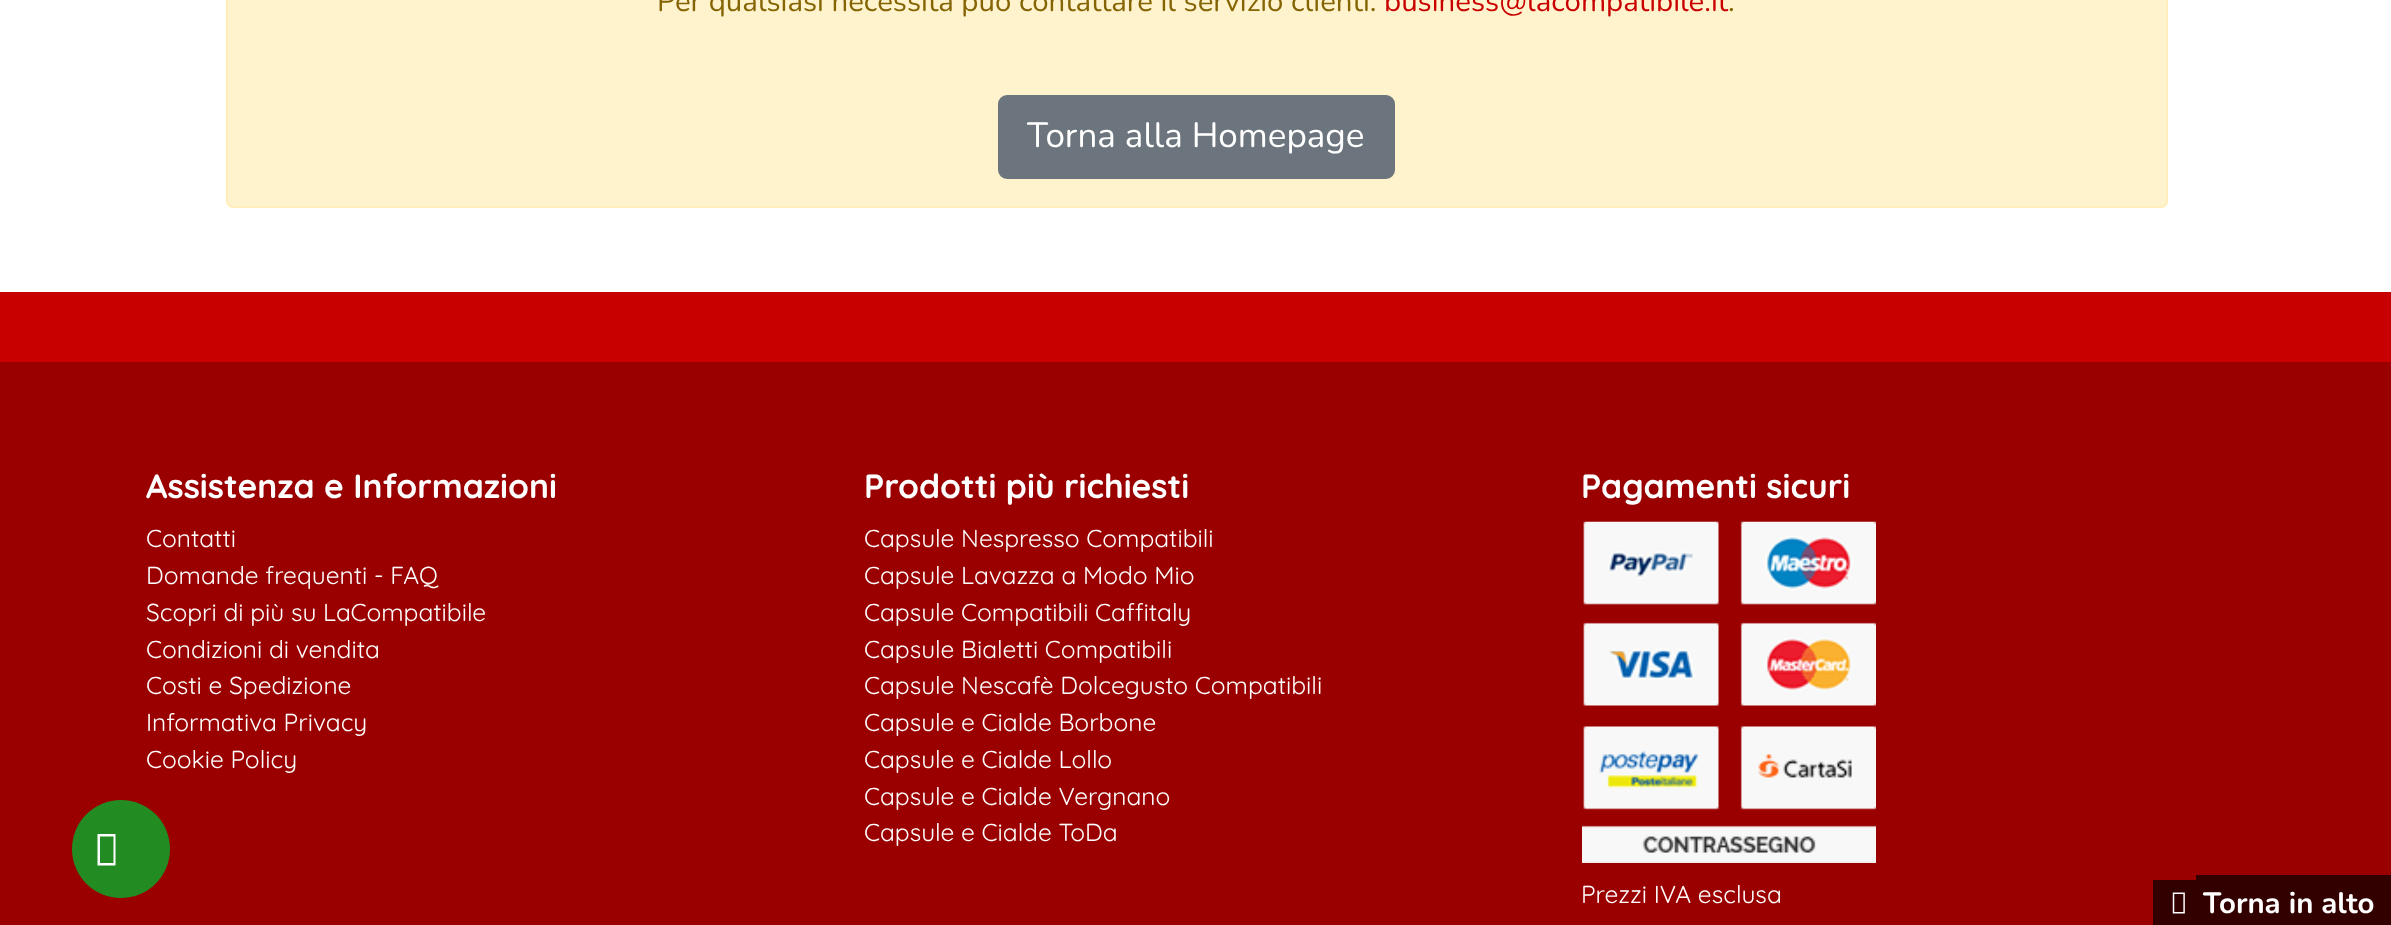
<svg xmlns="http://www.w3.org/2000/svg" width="2391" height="925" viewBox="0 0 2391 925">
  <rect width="100%" height="100%" fill="#ffffff"/>
  <rect x="227" y="-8" width="1940" height="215" rx="6" fill="#fff3cd" stroke="#ffeeba" stroke-width="2"/>
  <text x="657" y="11" font-family="Nunito" font-size="29.4" fill="#856404">Per qualsiasi necessità può contattare il servizio clienti:</text>
  <text x="1384" y="11" font-family="Nunito" font-size="29.4" fill="#c90000">business@lacompatibile.it</text>
  <text x="1728" y="11" font-family="Nunito" font-size="29.4" fill="#856404">.</text>
  <rect x="999" y="96" width="395" height="82" rx="8" fill="#6c757d" stroke="#6c757d" stroke-width="2"/>
  <text x="1027" y="147" font-family="Nunito" font-size="35" fill="#ffffff">Torna alla Homepage</text>
  <rect x="0" y="362" width="2391" height="563" fill="#9b0000"/>
  <circle cx="121" cy="849" r="49" fill="#228b22"/>
  <path d="M97.5 865.5V834H115.5V865.5ZM100 863H113.5V836.5H100Z" fill="#ffffff"/>
  <rect x="0" y="292" width="2391" height="70" fill="#c90000"/>
  <text x="146" y="498" font-family="Quicksand" font-size="33.6" font-weight="bold" fill="#ffffff">Assistenza e Informazioni</text>
  <text x="146" y="547" font-family="Quicksand" font-size="24.5" fill="#ffffff">Contatti</text>
  <text x="146" y="584" font-family="Quicksand" font-size="24.5" fill="#ffffff">Domande frequenti - FAQ</text>
  <text x="146" y="621" font-family="Quicksand" font-size="24.5" fill="#ffffff">Scopri di più su LaCompatibile</text>
  <text x="146" y="658" font-family="Quicksand" font-size="24.5" fill="#ffffff">Condizioni di vendita</text>
  <text x="146" y="694" font-family="Quicksand" font-size="24.5" fill="#ffffff">Costi e Spedizione</text>
  <text x="146" y="731" font-family="Quicksand" font-size="24.5" fill="#ffffff">Informativa Privacy</text>
  <text x="146" y="768" font-family="Quicksand" font-size="24.5" fill="#ffffff">Cookie Policy</text>
  <text x="864" y="498" font-family="Quicksand" font-size="33.6" font-weight="bold" fill="#ffffff">Prodotti più richiesti</text>
  <text x="864" y="547" font-family="Quicksand" font-size="24.5" fill="#ffffff">Capsule Nespresso Compatibili</text>
  <text x="864" y="584" font-family="Quicksand" font-size="24.5" fill="#ffffff">Capsule Lavazza a Modo Mio</text>
  <text x="864" y="621" font-family="Quicksand" font-size="24.5" fill="#ffffff">Capsule Compatibili Caffitaly</text>
  <text x="864" y="658" font-family="Quicksand" font-size="24.5" fill="#ffffff">Capsule Bialetti Compatibili</text>
  <text x="864" y="694" font-family="Quicksand" font-size="24.5" fill="#ffffff">Capsule Nescafè Dolcegusto Compatibili</text>
  <text x="864" y="731" font-family="Quicksand" font-size="24.5" fill="#ffffff">Capsule e Cialde Borbone</text>
  <text x="864" y="768" font-family="Quicksand" font-size="24.5" fill="#ffffff">Capsule e Cialde Lollo</text>
  <text x="864" y="805" font-family="Quicksand" font-size="24.5" fill="#ffffff">Capsule e Cialde Vergnano</text>
  <text x="864" y="841" font-family="Quicksand" font-size="24.5" fill="#ffffff">Capsule e Cialde ToDa</text>
  <text x="1581" y="498" font-family="Quicksand" font-size="33.6" font-weight="bold" fill="#ffffff">Pagamenti sicuri</text>
  <image x="1582" y="521" width="294" height="342" href="img1.png"/>
  <text x="1581" y="903" font-family="Quicksand" font-size="24.5" fill="#ffffff">Prezzi IVA esclusa</text>
  <rect x="2153" y="880" width="43" height="45" fill="#330000"/>
  <rect x="2196" y="875" width="195" height="50" fill="#330000"/>
  <image x="2172" y="892" width="13" height="22" href="img2.png"/>
  <text x="2203" y="913" font-family="Nunito" font-size="29.4" font-weight="bold" fill="#ffffff">Torna in alto</text>
</svg>
